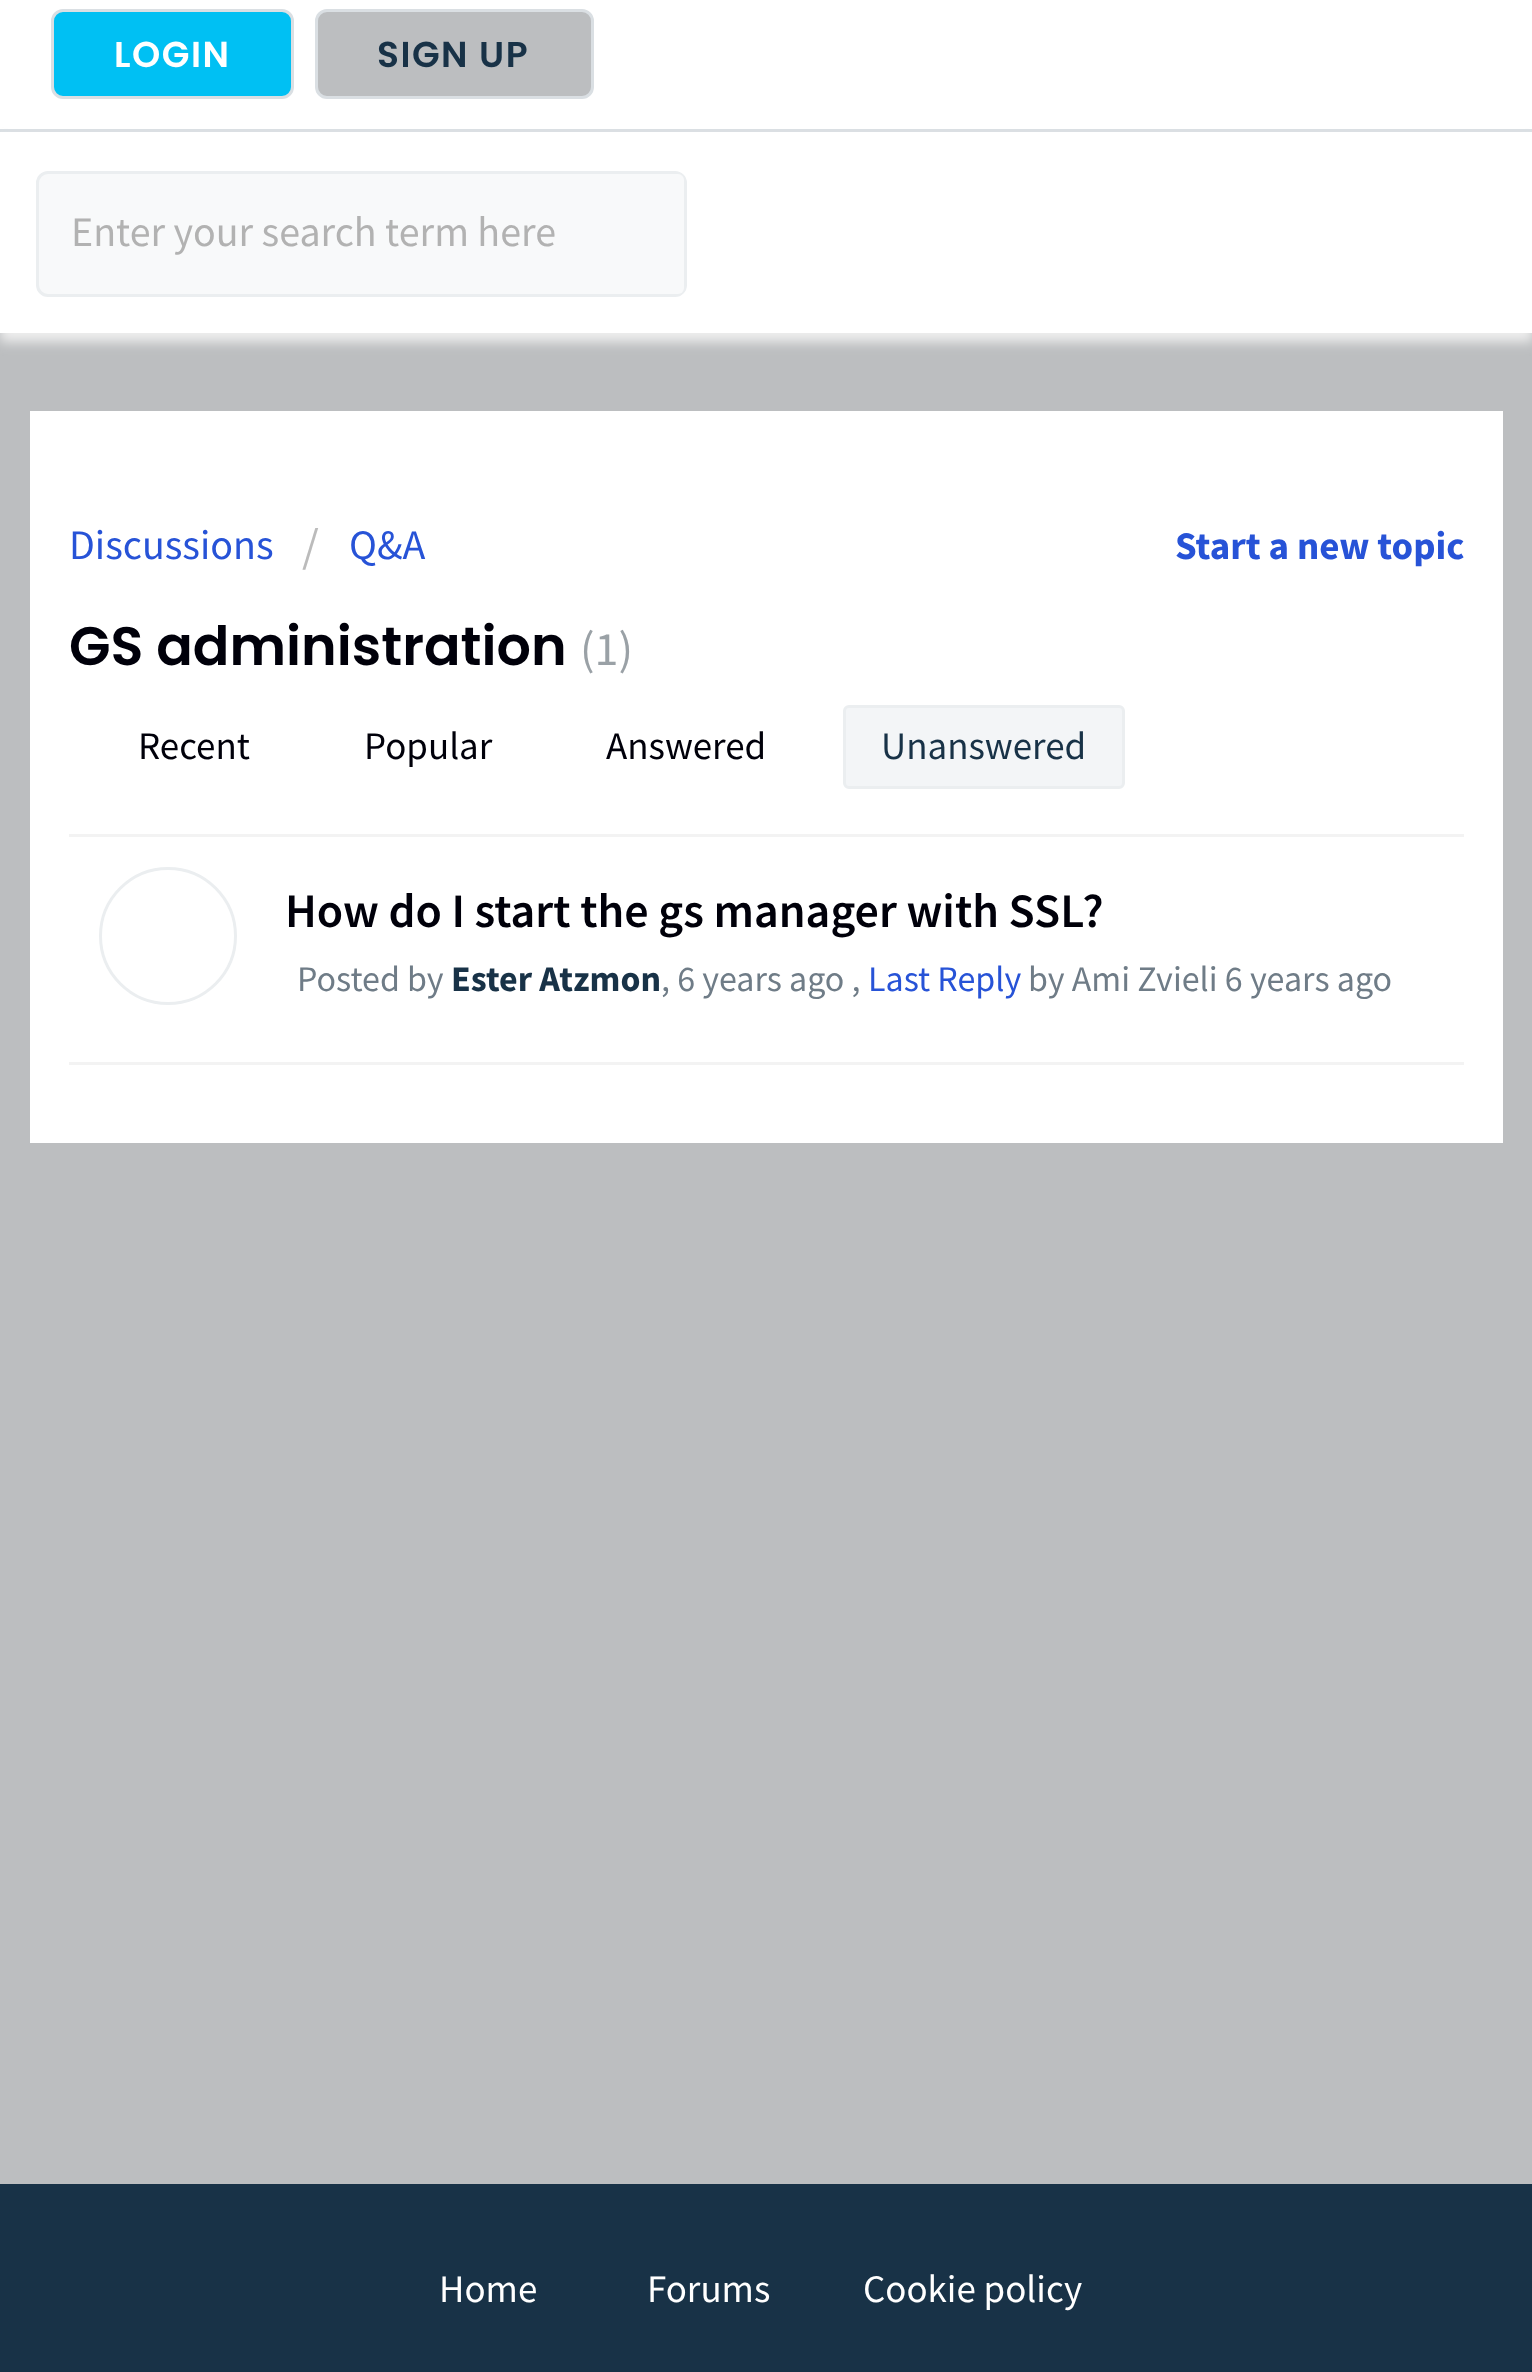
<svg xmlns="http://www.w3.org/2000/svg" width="1532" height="2372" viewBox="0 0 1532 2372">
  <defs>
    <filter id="blur1" x="-50%" y="-200%" width="200%" height="500%"><feGaussianBlur stdDeviation="6"/></filter>
  </defs>
  <rect width="100%" height="100%" fill="#bcbec0"/>
  <rect x="0" y="0" width="1532" height="129" fill="#ffffff"/>
  <rect x="0" y="129" width="1532" height="3" fill="#dadfe3"/>
  <rect x="52.5" y="10.5" width="240" height="87" rx="10.5" fill="#00c0f3" stroke="#dadfe3" stroke-width="3"/>
  <text x="114" y="67" font-family="Poppins" font-size="36" font-weight="600" letter-spacing="1.5" fill="#ffffff">LOGIN</text>
  <rect x="316.5" y="10.5" width="276" height="87" rx="10.5" fill="#bcbec0" stroke="#dadfe3" stroke-width="3"/>
  <text x="377" y="67" font-family="Poppins" font-size="36" font-weight="600" letter-spacing="1.5" fill="#183247">SIGN UP</text>
  <rect x="0" y="141" width="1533" height="201" fill="#eeeeee" filter="url(#blur1)"/>
  <rect x="0" y="132" width="1532" height="201" fill="#ffffff"/>
  <rect x="37.5" y="172.5" width="648" height="123" rx="10.5" fill="#f8f9fa" stroke="#ebeef0" stroke-width="3"/>
  <text x="71" y="246" font-family="Source Sans Pro" font-size="42" fill="#b2b2b2">Enter your search term here</text>
  <rect x="555" y="174" width="129" height="120" rx="6" fill="#f8f9fa"/>
  <rect x="30" y="411" width="1473" height="732" fill="#ffffff"/>
  <text x="69" y="559" font-family="Source Sans Pro" font-size="42" fill="#2753d7">Discussions</text>
  <text x="302" y="562" font-family="Source Sans Pro" font-size="48" fill="#bbbbbb">/</text>
  <text x="349" y="559" font-family="Source Sans Pro" font-size="42" fill="#2753d7">Q&amp;A</text>
  <text x="1175" y="559" font-family="Source Sans Pro" font-size="39" font-weight="bold" fill="#2753d7">Start a new topic</text>
  <text x="69" y="665" font-family="Poppins" font-size="54" font-weight="600" fill="#00000a">GS administration</text>
  <text x="580" y="665" font-family="Source Sans Pro" font-size="48" fill="#9aa1a6">(1)</text>
  <text x="138" y="759" font-family="Source Sans Pro" font-size="39" fill="#00000a">Recent</text>
  <text x="364" y="759" font-family="Source Sans Pro" font-size="39" fill="#00000a">Popular</text>
  <text x="606" y="759" font-family="Source Sans Pro" font-size="39" fill="#00000a">Answered</text>
  <rect x="844.5" y="706.5" width="279" height="81" rx="4.5" fill="#f3f5f7" stroke="#ebeef0" stroke-width="3"/>
  <text x="881" y="759" font-family="Source Sans Pro" font-size="39" fill="#183247">Unanswered</text>
  <rect x="69" y="1062" width="1395" height="3" fill="#f3f3f3"/>
  <rect x="69" y="834" width="1395" height="3" fill="#f3f3f3"/>
  <circle cx="168" cy="936" r="67.5" fill="none" stroke="#ebeef0" stroke-width="3"/>
  <text x="285" y="927" font-family="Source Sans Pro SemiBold" font-size="48" font-weight="600" fill="#00000a">How do I start the gs manager with SSL?</text>
  <text x="297" y="991" font-family="Source Sans Pro" font-size="36" fill="#6f7c87">Posted by</text>
  <text x="451" y="991" font-family="Source Sans Pro" font-size="36" font-weight="bold" fill="#183247">Ester Atzmon</text>
  <text x="661" y="991" font-family="Source Sans Pro" font-size="36" fill="#6f7c87">, 6 years ago ,</text>
  <text x="868" y="991" font-family="Source Sans Pro" font-size="36" fill="#2753d7">Last Reply</text>
  <text x="1028" y="991" font-family="Source Sans Pro" font-size="36" fill="#6f7c87">by Ami Zvieli 6 years ago</text>
  <rect x="0" y="2184" width="1532" height="188" fill="#183247"/>
  <text x="439" y="2302" font-family="Source Sans Pro" font-size="39" fill="#ffffff">Home</text>
  <text x="647" y="2302" font-family="Source Sans Pro" font-size="39" fill="#ffffff">Forums</text>
  <text x="863" y="2302" font-family="Source Sans Pro" font-size="39" fill="#ffffff">Cookie policy</text>
</svg>
